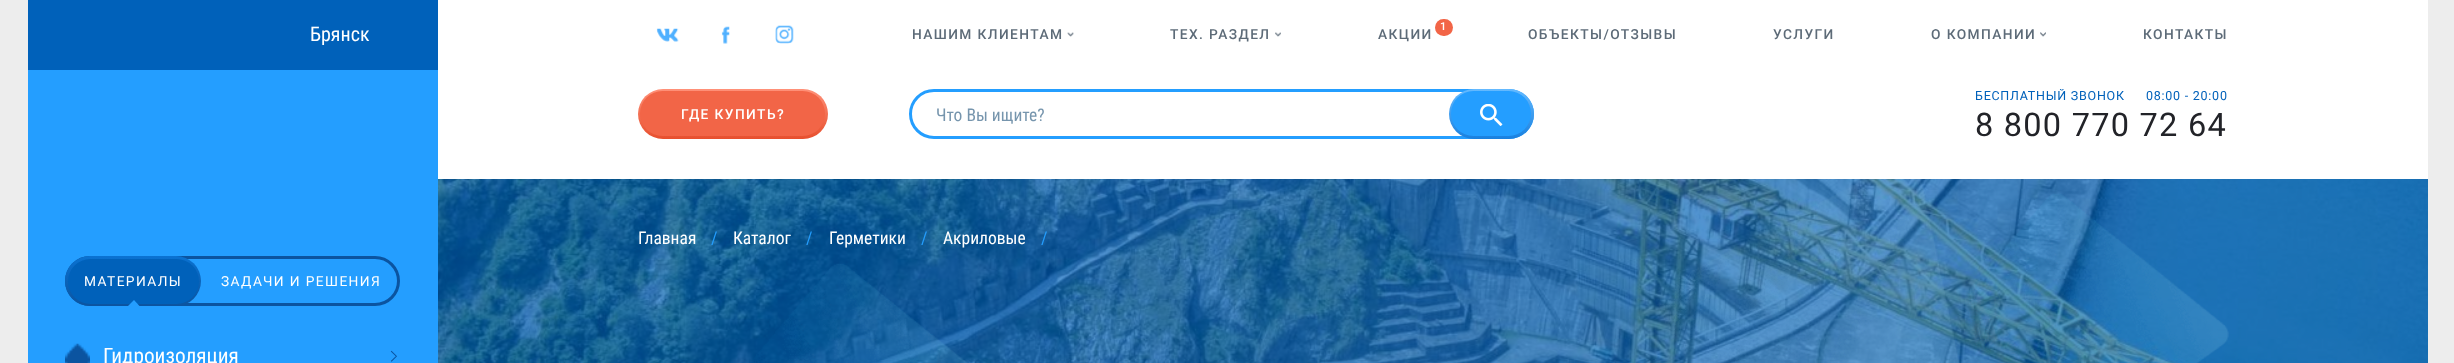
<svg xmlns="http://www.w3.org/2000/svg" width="2454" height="363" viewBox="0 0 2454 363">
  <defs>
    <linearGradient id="g1" gradientUnits="userSpaceOnUse" x1="133" y1="256" x2="133" y2="306"><stop offset="0" stop-color="#0a72d2"/><stop offset="1" stop-color="#0b54a0"/></linearGradient>
    <linearGradient id="g2" gradientUnits="userSpaceOnUse" x1="733" y1="89" x2="733" y2="139"><stop offset="0" stop-color="#ff9179"/><stop offset="1" stop-color="#e74f2e"/></linearGradient>
    <linearGradient id="g3" gradientUnits="userSpaceOnUse" x1="1491" y1="89" x2="1491" y2="139"><stop offset="0" stop-color="#65baff"/><stop offset="1" stop-color="#1980df"/></linearGradient>
  </defs>
  <rect width="100%" height="100%" fill="#ededed"/>
  <rect x="438" y="0" width="1990" height="179" fill="#ffffff"/>
  <rect x="28" y="70" width="410" height="293" fill="#249eff"/>
  <rect x="28" y="0" width="410" height="70" fill="#0061ba"/>
  <text x="310" y="41" font-family="Roboto Condensed" font-size="20" fill="#ffffff">Брянск</text>
  <rect x="66.5" y="257.5" width="332" height="47" rx="23.5" fill="none" stroke="#0b54a0" stroke-width="3"/>
  <rect x="65" y="256" width="136" height="50" rx="25" fill="url(#g1)"/>
  <rect x="68" y="259" width="131" height="45" rx="22.5" fill="#0061ba"/>
  <text x="84" y="286" font-family="Roboto" font-size="13.75" letter-spacing="1.4" fill="#ffffff">МАТЕРИАЛЫ</text>
  <path d="M139.5 306H128L134 300Z" fill="#249eff"/>
  <text x="221" y="286" font-family="Roboto" font-size="13.75" letter-spacing="1.4" fill="#ffffff">ЗАДАЧИ И РЕШЕНИЯ</text>
  <image x="65" y="343" width="25" height="20" href="img1.png"/>
  <text x="103" y="363" font-family="Roboto Condensed" font-size="21.25" fill="#ffffff">Гидроизоляция</text>
  <image x="390" y="350" width="7" height="12" href="img2.png"/>
  <image x="656" y="28" width="23" height="14" href="img3.png"/>
  <image x="721" y="26" width="9" height="18" href="img4.png"/>
  <image x="775" y="25" width="19" height="19" href="img5.png"/>
  <text x="912" y="39" font-family="Roboto" font-size="13.75" font-weight="500" letter-spacing="1.4" fill="#5d6b78">НАШИМ КЛИЕНТАМ</text>
  <image x="1067" y="32" width="7" height="5" href="img6.png"/>
  <text x="1170" y="39" font-family="Roboto" font-size="13.75" font-weight="500" letter-spacing="1.4" fill="#5d6b78">ТЕХ. РАЗДЕЛ</text>
  <image x="1275" y="32" width="6" height="5" href="img7.png"/>
  <rect x="1435" y="19" width="18" height="17" rx="8.5" fill="#f26547"/>
  <text x="1440" y="30" font-family="Roboto" font-size="11" font-weight="500" letter-spacing="1.4" fill="#ffffff">1</text>
  <text x="1378" y="39" font-family="Roboto" font-size="13.75" font-weight="500" letter-spacing="1.4" fill="#5d6b78">АКЦИИ</text>
  <text x="1528" y="39" font-family="Roboto" font-size="13.75" font-weight="500" letter-spacing="1.4" fill="#5d6b78">ОБЪЕКТЫ/ОТЗЫВЫ</text>
  <text x="1773" y="39" font-family="Roboto" font-size="13.75" font-weight="500" letter-spacing="1.4" fill="#5d6b78">УСЛУГИ</text>
  <text x="1931" y="39" font-family="Roboto" font-size="13.75" font-weight="500" letter-spacing="1.4" fill="#5d6b78">О КОМПАНИИ</text>
  <image x="2040" y="32" width="6" height="5" href="img8.png"/>
  <text x="2143" y="39" font-family="Roboto" font-size="13.75" font-weight="500" letter-spacing="1.4" fill="#5d6b78">КОНТАКТЫ</text>
  <rect x="638" y="89" width="190" height="50" rx="25" fill="url(#g2)"/>
  <rect x="640" y="91" width="185" height="45" rx="22.5" fill="#f26547"/>
  <text x="681" y="119" font-family="Roboto" font-size="13.75" font-weight="500" letter-spacing="1.4" fill="#ffffff">ГДЕ КУПИТЬ?</text>
  <rect x="910.5" y="90.5" width="622" height="47" rx="23.5" fill="none" stroke="#249eff" stroke-width="3"/>
  <text x="936" y="121" font-family="Roboto Condensed" font-size="17.5" fill="#7695ad">Что Вы ищите?</text>
  <rect x="1449" y="89" width="85" height="50" rx="25" fill="url(#g3)"/>
  <rect x="1451" y="91" width="80" height="45" rx="22.5" fill="#249eff"/>
  <image x="1480" y="104" width="23" height="22" href="img9.png"/>
  <text x="1975" y="100" font-family="Roboto" font-size="12.5" letter-spacing="0.75" fill="#0061ba">БЕСПЛАТНЫЙ ЗВОНОК</text>
  <text x="2146" y="100" font-family="Roboto" font-size="12.5" letter-spacing="0.75" fill="#0061ba">08:00 - 20:00</text>
  <text x="1975" y="136" font-family="Roboto" font-size="32.5" letter-spacing="1.25" fill="#222328">8 800 770 72 64</text>
  <image x="438" y="179" width="1990" height="184" href="img10.png"/>
  <image x="438" y="179" width="1990" height="184" href="img11.png"/>
  <text x="638" y="244" font-family="Roboto Condensed" font-size="17.5" fill="#ffffff">Главная</text>
  <text x="711" y="244" font-family="Roboto Condensed" font-size="17.5" fill="#249eff">/</text>
  <text x="733" y="244" font-family="Roboto Condensed" font-size="17.5" fill="#ffffff">Каталог</text>
  <text x="806" y="244" font-family="Roboto Condensed" font-size="17.5" fill="#249eff">/</text>
  <text x="829" y="244" font-family="Roboto Condensed" font-size="17.5" fill="#ffffff">Герметики</text>
  <text x="921" y="244" font-family="Roboto Condensed" font-size="17.5" fill="#249eff">/</text>
  <text x="943" y="244" font-family="Roboto Condensed" font-size="17.5" fill="#ffffff">Акриловые</text>
  <text x="1041" y="244" font-family="Roboto Condensed" font-size="17.5" fill="#249eff">/</text>
</svg>
